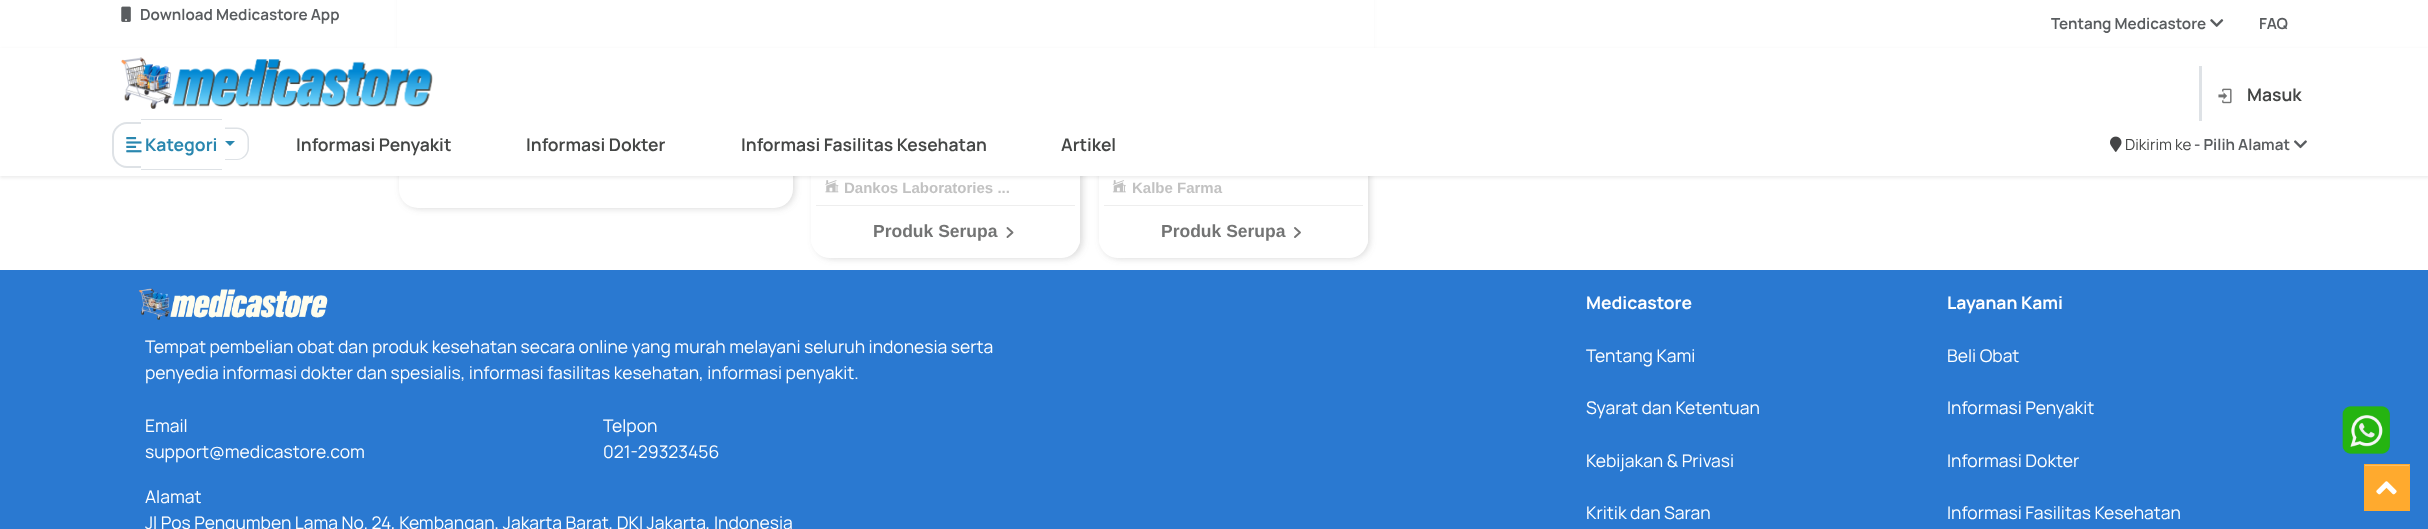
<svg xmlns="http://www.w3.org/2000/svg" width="2428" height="529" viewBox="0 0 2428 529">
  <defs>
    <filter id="blur1" x="-50%" y="-200%" width="200%" height="500%"><feGaussianBlur stdDeviation="3"/></filter>
    <filter id="blur2" x="-50%" y="-200%" width="200%" height="500%"><feGaussianBlur stdDeviation="1.5"/></filter>
    <clipPath id="clip1"><rect x="811" y="-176" width="269" height="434" rx="19"/></clipPath>
    <clipPath id="clip2"><rect x="1099" y="-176" width="269" height="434" rx="19"/></clipPath>
  </defs>
  <rect width="100%" height="100%" fill="#ffffff"/>
  <rect x="401" y="-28" width="394" height="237" rx="19" fill="#808080" fill-opacity="0.27" filter="url(#blur1)"/>
  <rect x="399" y="-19" width="394" height="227" rx="19" fill="#ffffff"/>
  <rect x="814" y="-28" width="269" height="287" rx="19" fill="#808080" fill-opacity="0.27" filter="url(#blur1)"/>
  <rect x="1101" y="-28" width="269" height="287" rx="19" fill="#808080" fill-opacity="0.27" filter="url(#blur1)"/>
  <rect x="397" y="0" width="977" height="48" fill="#ffffff"/>
  <image x="121" y="6" width="10" height="16" href="img1.png"/>
  <text x="140" y="20" font-family="Manrope" font-size="15.25" font-weight="600" fill="#595c5f">Download Medicastore App</text>
  <text x="2051" y="29" font-family="Manrope" font-size="15.25" font-weight="600" fill="#595c5f">Tentang Medicastore</text>
  <image x="2210" y="19" width="14" height="8" href="img2.png"/>
  <text x="2259" y="29" font-family="Manrope" font-size="15.25" font-weight="600" fill="#595c5f">FAQ</text>
  <path d="M811 93H1080V239C1080 249.5 1071.5 258 1061 258H830C819.5 258 811 249.5 811 239Z" fill="#ffffff"/>
  <image x="825" y="180" width="14" height="13" href="img8.png"/>
  <path d="M1099 93H1368V239C1368 249.5 1359.5 258 1349 258H1118C1107.5 258 1099 249.5 1099 239Z" fill="#ffffff"/>
  <image x="1112" y="180" width="14" height="13" href="img9.png"/>
  <rect x="0" y="49" width="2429" height="129" fill="#212529" fill-opacity="0.07" filter="url(#blur2)"/>
  <rect x="0" y="48" width="2428" height="128" fill="#ffffff"/>
  <image x="121" y="57" width="312" height="52" href="img3.png"/>
  <path d="M127 122H141V168H127C119 168 112 161 112 153V137C112 129 119 122 127 122ZM127 124H141V166H127C120 166 114 160 114 153V137C114 130 120 124 127 124Z" fill="#dee2e6" fill-rule="evenodd"/>
  <rect x="141" y="119" width="81" height="1" fill="#dee2e6"/>
  <rect x="141" y="169" width="81" height="1" fill="#dee2e6"/>
  <path d="M225 127.5H237C243.5 127.5 249 133 249 139.5V148C249 154.5 243.5 160 237 160H225ZM225 129H237C242.5 129 247.5 133.5 247.5 139.5V148C247.5 154 242.5 159 237 159H225Z" fill="#dee2e6" fill-rule="evenodd"/>
  <image x="126" y="137" width="16" height="16" href="img4.png"/>
  <text x="145" y="151" font-family="Manrope" font-size="17.5" font-weight="bold" fill="#2a87af">Kategori</text>
  <path d="M225 141H235L230 146Z" fill="#2a87af"/>
  <text x="296" y="151" font-family="Manrope" font-size="17.5" font-weight="600" fill="#444645">Informasi Penyakit</text>
  <text x="526" y="151" font-family="Manrope" font-size="17.5" font-weight="600" fill="#444645">Informasi Dokter</text>
  <text x="741" y="151" font-family="Manrope" font-size="17.5" font-weight="600" fill="#444645">Informasi Fasilitas Kesehatan</text>
  <text x="1061" y="151" font-family="Manrope" font-size="17.5" font-weight="600" fill="#444645">Artikel</text>
  <rect x="2199" y="66" width="3" height="55" fill="#dee2e6"/>
  <image x="2218" y="88" width="14" height="16" href="img5.png"/>
  <text x="2247" y="101" font-family="Manrope" font-size="17.5" font-weight="600" fill="#444645">Masuk</text>
  <image x="2110" y="136" width="12" height="16" href="img6.png"/>
  <text x="2125" y="150" font-family="Manrope" font-size="15.25" fill="#444645">Dikirim ke</text>
  <text x="2194" y="150" font-family="Manrope" font-size="15.25" font-weight="600" fill="#595c5f">- Pilih Alamat</text>
  <image x="2294" y="140" width="13" height="9" href="img7.png"/>
  <rect x="816" y="205" width="259" height="1" fill="#eeeeee"/>
  <text x="844" y="193" font-family="Liberation Sans" font-size="15" font-weight="bold" fill="#c2c2c2">Dankos Laboratories ...</text>
  <g clip-path="url(#clip1)">
    <rect x="811" y="216" width="269" height="29" fill="#ffffff"/>
  </g>
  <text x="873" y="237" font-family="Liberation Sans" font-size="17.5" font-weight="bold" fill="#737474">Produk Serupa</text>
  <path d="M1007.5 228L1012.5 232.5L1007.5 237" fill="none" stroke="#757575" stroke-width="1.9" stroke-linecap="round" stroke-linejoin="round"/>
  <rect x="1104" y="205" width="259" height="1" fill="#eeeeee"/>
  <text x="1132" y="193" font-family="Liberation Sans" font-size="15" font-weight="bold" fill="#c2c2c2">Kalbe Farma</text>
  <g clip-path="url(#clip2)">
    <rect x="1099" y="216" width="269" height="29" fill="#ffffff"/>
  </g>
  <text x="1161" y="237" font-family="Liberation Sans" font-size="17.5" font-weight="bold" fill="#737474">Produk Serupa</text>
  <path d="M1295 228L1300 232.5L1295 237" fill="none" stroke="#757575" stroke-width="1.9" stroke-linecap="round" stroke-linejoin="round"/>
  <rect x="0" y="270" width="2428" height="259" fill="#2a79d1"/>
  <image x="138" y="288" width="190" height="32" href="img10.png"/>
  <text x="145" y="353" font-family="Manrope" font-size="17.5" fill="#ffffff">Tempat pembelian obat dan produk kesehatan secara online yang murah melayani seluruh indonesia serta</text>
  <text x="145" y="379" font-family="Manrope" font-size="17.5" fill="#ffffff">penyedia informasi dokter dan spesialis, informasi fasilitas kesehatan, informasi penyakit.</text>
  <text x="145" y="432" font-family="Manrope" font-size="17.5" fill="#ffffff">Email</text>
  <text x="145" y="458" font-family="Manrope" font-size="17.5" fill="#ffffff">support@medicastore.com</text>
  <text x="603" y="432" font-family="Manrope" font-size="17.5" fill="#ffffff">Telpon</text>
  <text x="603" y="458" font-family="Manrope" font-size="17.5" fill="#ffffff">021-29323456</text>
  <text x="145" y="503" font-family="Manrope" font-size="17.5" fill="#ffffff">Alamat</text>
  <text x="145" y="529" font-family="Manrope" font-size="17.5" fill="#ffffff">Jl Pos Pengumben Lama No. 24, Kembangan, Jakarta Barat, DKI Jakarta, Indonesia</text>
  <text x="1586" y="309" font-family="Manrope" font-size="17.5" font-weight="bold" fill="#ffffff">Medicastore</text>
  <text x="1586" y="362" font-family="Manrope" font-size="17.5" fill="#ffffff">Tentang Kami</text>
  <text x="1586" y="414" font-family="Manrope" font-size="17.5" fill="#ffffff">Syarat dan Ketentuan</text>
  <text x="1586" y="467" font-family="Manrope" font-size="17.5" fill="#ffffff">Kebijakan &amp; Privasi</text>
  <text x="1586" y="519" font-family="Manrope" font-size="17.5" fill="#ffffff">Kritik dan Saran</text>
  <text x="1947" y="309" font-family="Manrope" font-size="17.5" font-weight="bold" fill="#ffffff">Layanan Kami</text>
  <text x="1947" y="362" font-family="Manrope" font-size="17.5" fill="#ffffff">Beli Obat</text>
  <text x="1947" y="414" font-family="Manrope" font-size="17.5" fill="#ffffff">Informasi Penyakit</text>
  <text x="1947" y="467" font-family="Manrope" font-size="17.5" fill="#ffffff">Informasi Dokter</text>
  <text x="1947" y="519" font-family="Manrope" font-size="17.5" fill="#ffffff">Informasi Fasilitas Kesehatan</text>
  <image x="2342" y="406" width="48" height="48" href="img11.png"/>
  <rect x="2364" y="464" width="46" height="47" fill="#ffaa2e"/>
  <rect x="2365" y="465" width="44" height="1" fill="#ffbf62"/>
  <image x="2376" y="481" width="21" height="14" href="img12.png"/>
</svg>
